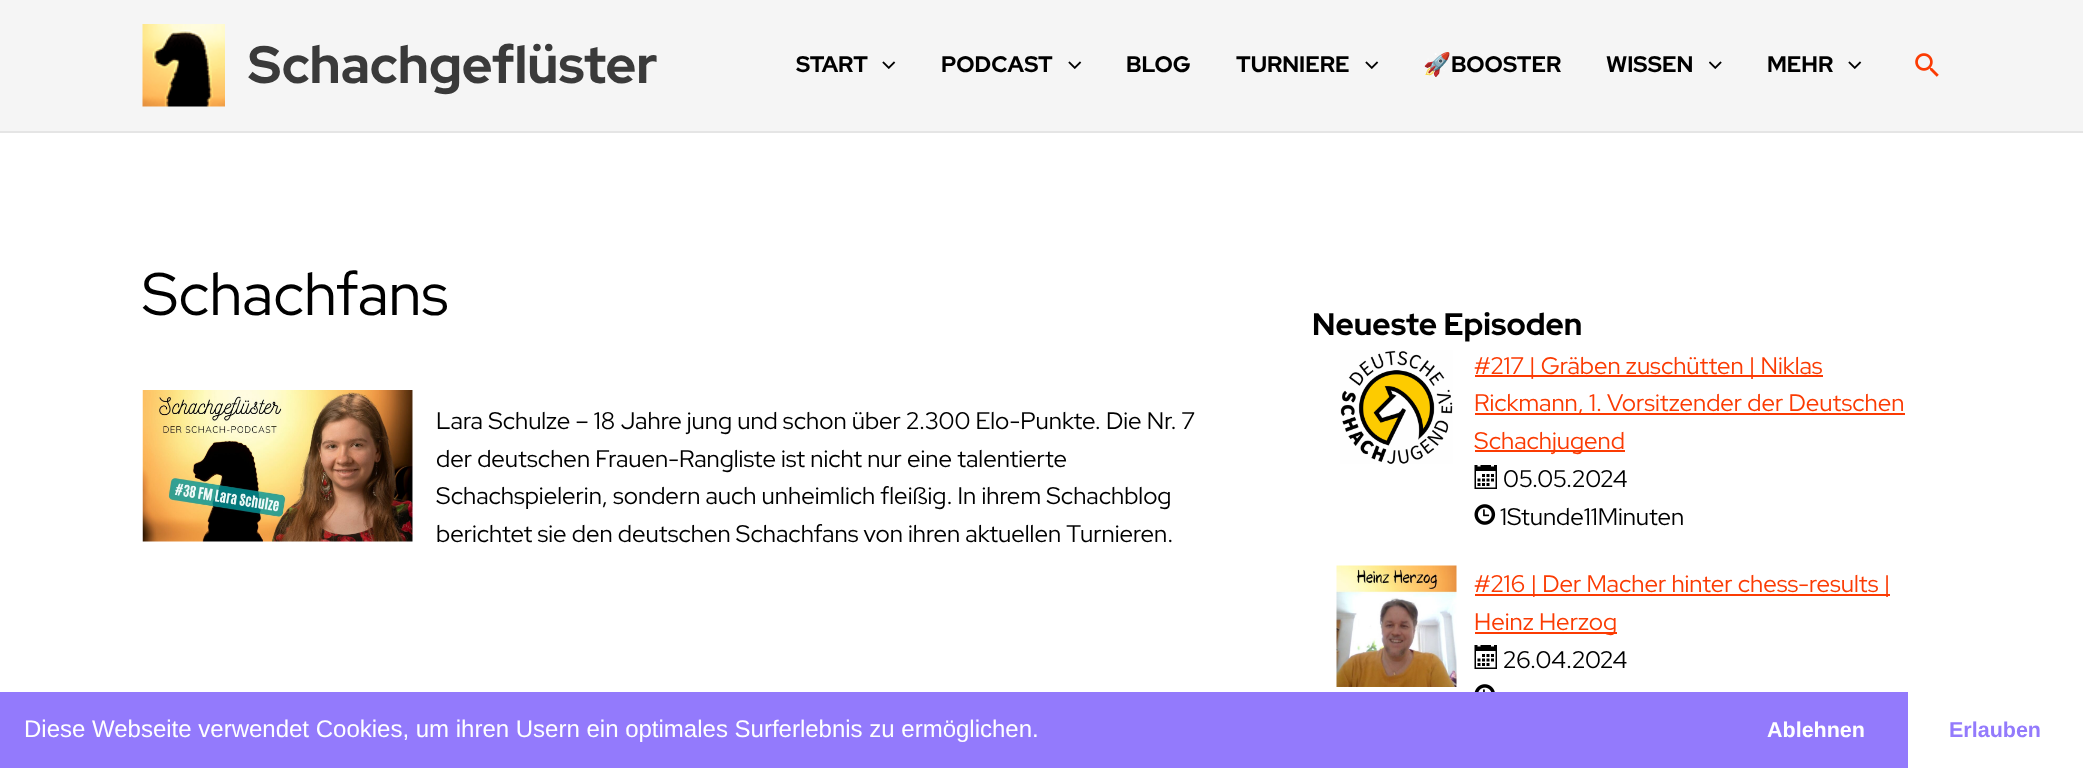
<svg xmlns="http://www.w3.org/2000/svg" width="2083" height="768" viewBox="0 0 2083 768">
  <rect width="100%" height="100%" fill="#ffffff"/>
  <rect x="0" y="0" width="2083" height="131" fill="#f5f5f5"/>
  <rect x="0" y="131" width="2083" height="2" fill="#e5e5e5"/>
  <image x="142" y="24" width="83" height="83" href="img1.png"/>
  <text x="248" y="83" font-family="Red Hat Display" font-size="52.5" font-weight="bold" fill="#3a3a3a">Schachgeflüster</text>
  <text x="796" y="72" font-family="Red Hat Display" font-size="22.5" font-weight="bold" fill="#000000">START</text>
  <image x="882" y="61" width="14" height="8" href="img2.png"/>
  <text x="941" y="72" font-family="Red Hat Display" font-size="22.5" font-weight="bold" fill="#000000">PODCAST</text>
  <image x="1068" y="61" width="14" height="8" href="img2.png"/>
  <text x="1126" y="72" font-family="Red Hat Display" font-size="22.5" font-weight="bold" fill="#000000">BLOG</text>
  <text x="1236" y="72" font-family="Red Hat Display" font-size="22.5" font-weight="bold" fill="#000000">TURNIERE</text>
  <image x="1365" y="61" width="14" height="8" href="img2.png"/>
  <text x="1423" y="72" font-family="Noto Color Emoji" font-size="22.5" font-weight="bold" fill="#000000">🚀</text>
  <text x="1451" y="72" font-family="Red Hat Display" font-size="22.5" font-weight="bold" fill="#000000">BOOSTER</text>
  <text x="1606" y="72" font-family="Red Hat Display" font-size="22.5" font-weight="bold" fill="#000000">WISSEN</text>
  <image x="1709" y="61" width="13" height="8" href="img3.png"/>
  <text x="1767" y="72" font-family="Red Hat Display" font-size="22.5" font-weight="bold" fill="#000000">MEHR</text>
  <image x="1848" y="61" width="14" height="8" href="img2.png"/>
  <image x="1915" y="53" width="24" height="24" href="img4.png"/>
  <text x="142" y="315" font-family="Red Hat Display" font-size="60" fill="#000000">Schachfans</text>
  <image x="142" y="390" width="271" height="152" href="img5.png"/>
  <text x="436" y="429" font-family="Red Hat Display" font-size="24" fill="#000000">Lara Schulze – 18 Jahre jung und schon über 2.300 Elo-Punkte. Die Nr. 7</text>
  <text x="436" y="467" font-family="Red Hat Display" font-size="24" fill="#000000">der deutschen Frauen-Rangliste ist nicht nur eine talentierte</text>
  <text x="436" y="504" font-family="Red Hat Display" font-size="24" fill="#000000">Schachspielerin, sondern auch unheimlich fleißig. In ihrem Schachblog</text>
  <text x="436" y="542" font-family="Red Hat Display" font-size="24" fill="#000000">berichtet sie den deutschen Schachfans von ihren aktuellen Turnieren.</text>
  <text x="1312" y="335" font-family="Red Hat Display" font-size="31.25" font-weight="bold" fill="#000000">Neueste Episoden</text>
  <image x="1340" y="350" width="113" height="114" href="img6.png"/>
  <rect x="1475" y="375" width="348" height="2" fill="#fb3b03"/>
  <text x="1474" y="374" font-family="Red Hat Display" font-size="24" fill="#fb3b03">#217 | Gräben zuschütten | Niklas</text>
  <rect x="1475" y="413" width="430" height="2" fill="#fb3b03"/>
  <text x="1474" y="411" font-family="Red Hat Display" font-size="24" fill="#fb3b03">Rickmann, 1. Vorsitzender der Deutschen</text>
  <rect x="1475" y="450" width="150" height="2" fill="#fb3b03"/>
  <text x="1474" y="449" font-family="Red Hat Display" font-size="24" fill="#fb3b03">Schachjugend</text>
  <image x="1474" y="465" width="23" height="24" href="img7.png"/>
  <text x="1503" y="487" font-family="Red Hat Display" font-size="24" fill="#000000">05.05.2024</text>
  <image x="1474" y="504" width="22" height="21" href="img8.png"/>
  <text x="1500" y="525" font-family="Red Hat Display" font-size="24" fill="#000000">1Stunde11Minuten</text>
  <image x="1336" y="565" width="121" height="122" href="img9.png"/>
  <rect x="1475" y="594" width="415" height="2" fill="#fb3b03"/>
  <text x="1474" y="592" font-family="Red Hat Display" font-size="24" fill="#fb3b03">#216 | Der Macher hinter chess-results |</text>
  <rect x="1475" y="632" width="142" height="2" fill="#fb3b03"/>
  <text x="1474" y="630" font-family="Red Hat Display" font-size="24" fill="#fb3b03">Heinz Herzog</text>
  <image x="1474" y="645" width="23" height="24" href="img7.png"/>
  <text x="1503" y="668" font-family="Red Hat Display" font-size="24" fill="#000000">26.04.2024</text>
  <image x="1474" y="684" width="21" height="8" href="img10.png"/>
  <rect x="0" y="692" width="1908" height="76" fill="#937afc"/>
  <text x="24" y="737" font-family="Liberation Sans" font-size="24" fill="#ffffff">Diese Webseite verwendet Cookies, um ihren Usern ein optimales Surferlebnis zu ermöglichen.</text>
  <text x="1767" y="737" font-family="Liberation Sans" font-size="21.5" font-weight="bold" fill="#ffffff">Ablehnen</text>
  <text x="1949" y="737" font-family="Liberation Sans" font-size="21.5" font-weight="bold" fill="#937afc">Erlauben</text>
</svg>
